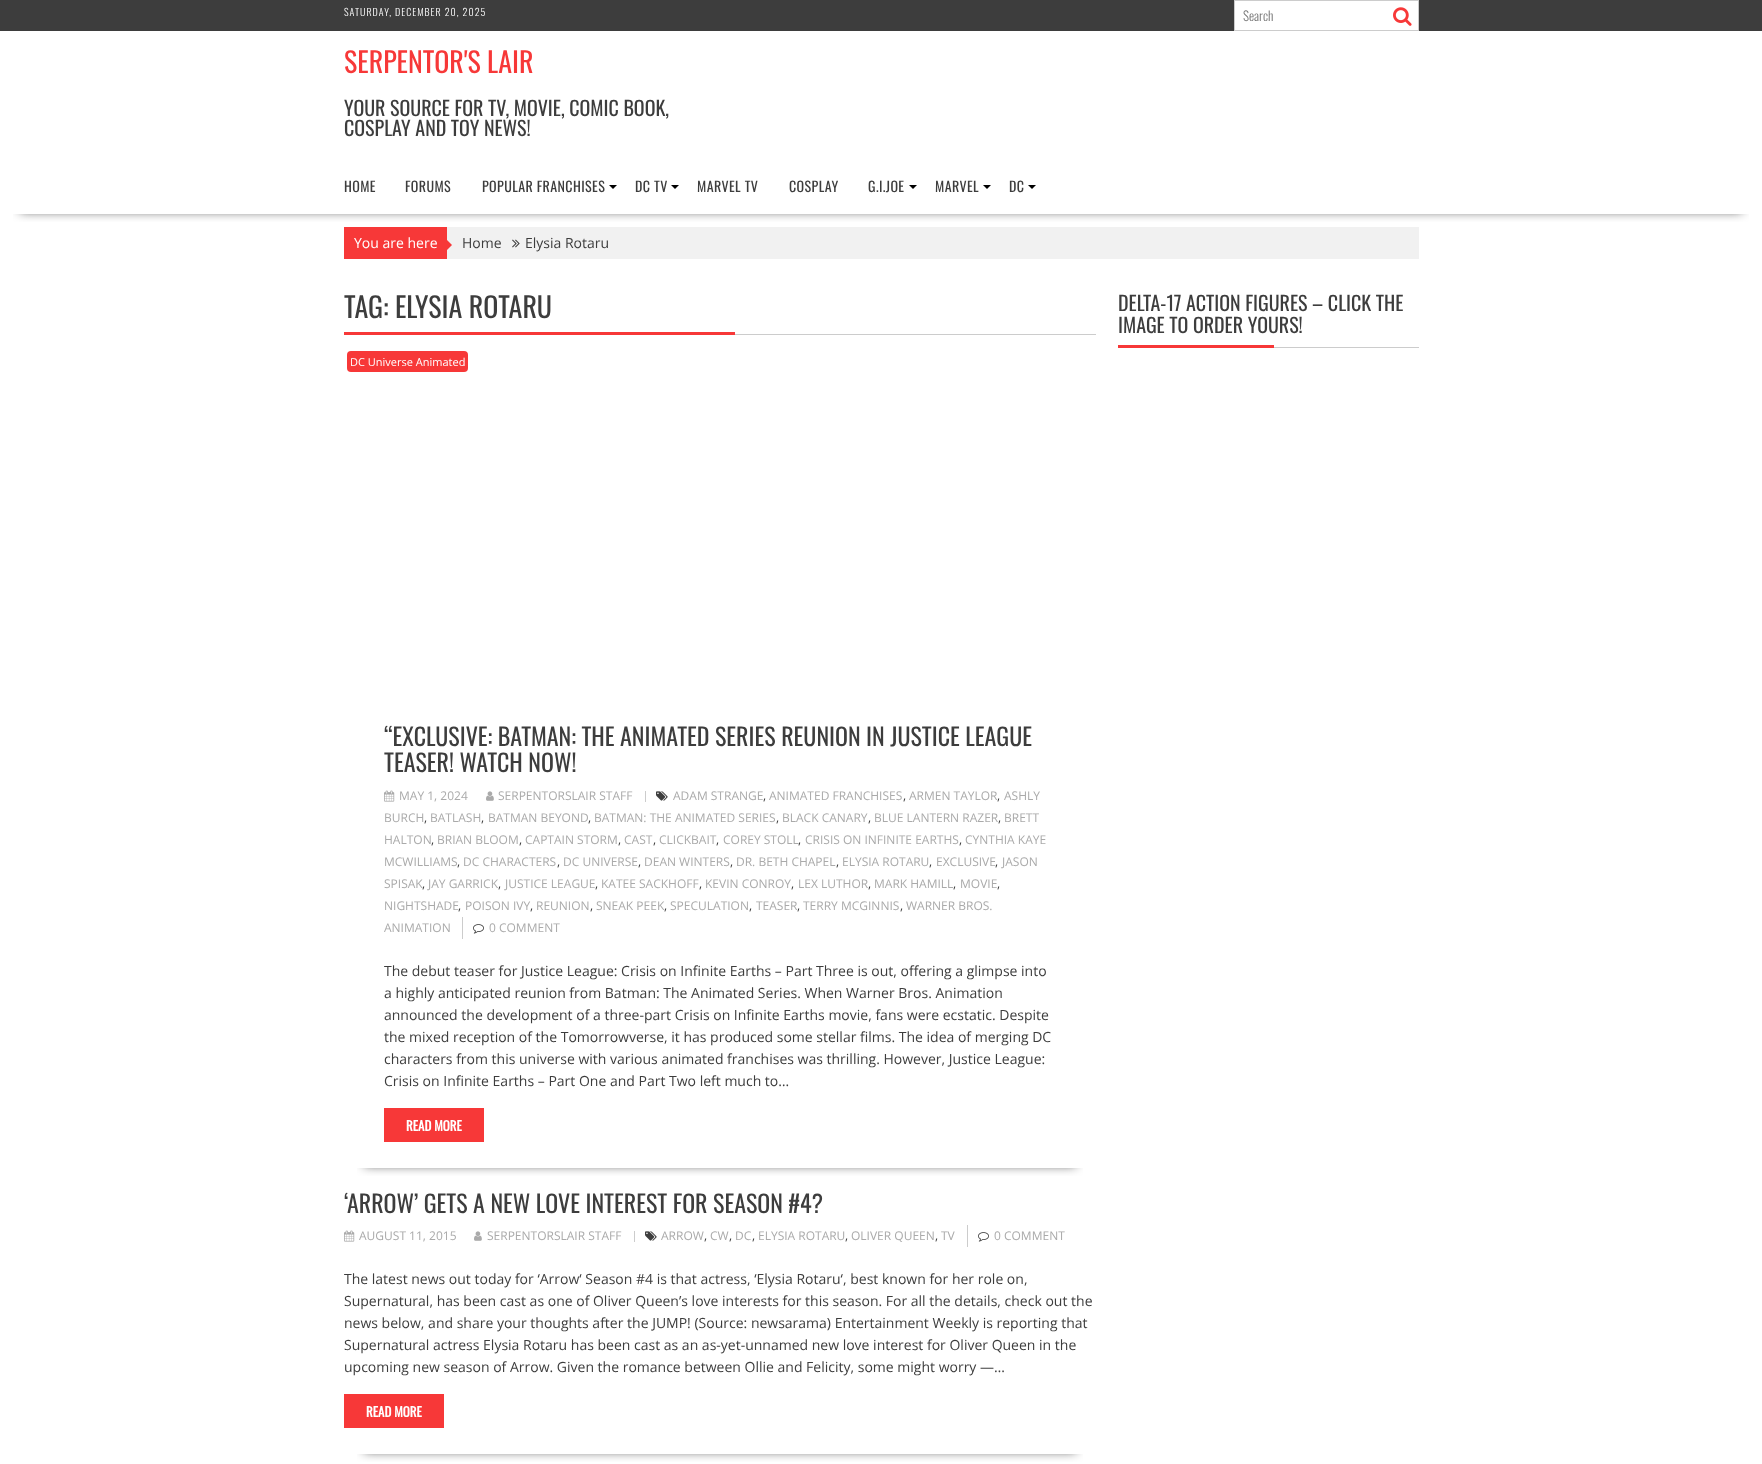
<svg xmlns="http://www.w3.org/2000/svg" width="1762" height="1464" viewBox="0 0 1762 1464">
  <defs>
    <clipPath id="clip1"><rect x="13" y="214" width="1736" height="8"/></clipPath>
    <filter id="blur1" x="-50%" y="-200%" width="200%" height="500%"><feGaussianBlur stdDeviation="5.5"/></filter>
    <clipPath id="clip2"><rect x="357" y="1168" width="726" height="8"/></clipPath>
    <clipPath id="clip3"><rect x="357" y="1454" width="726" height="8"/></clipPath>
  </defs>
  <rect width="100%" height="100%" fill="#ffffff"/>
  <rect x="0" y="0" width="1762" height="31" fill="#3d3d3d"/>
  <text x="344" y="16" font-family="Oswald" font-size="10" font-weight="300" letter-spacing="1" fill="#ffffff">SATURDAY, DECEMBER 20, 2025</text>
  <rect x="1234.5" y="0.5" width="184" height="30" fill="#ffffff" stroke="#cccccc"/>
  <text x="1243" y="21" font-family="Oswald" font-size="13" font-weight="300" fill="#757575">Search</text>
  <image x="1393" y="7" width="19" height="19" href="img1.png"/>
  <text x="344" y="73" font-family="Oswald" font-size="28" fill="#f73838">SERPENTOR'S LAIR</text>
  <text x="344" y="116" font-family="Oswald" font-size="20" fill="#3d3d3d">YOUR SOURCE FOR TV, MOVIE, COMIC BOOK,</text>
  <text x="344" y="136" font-family="Oswald" font-size="20" fill="#3d3d3d">COSPLAY AND TOY NEWS!</text>
  <rect x="447" y="227" width="972" height="32" fill="#f1f1f1"/>
  <g clip-path="url(#clip1)">
    <rect x="20" y="199" width="1722" height="12" fill="#000000" fill-opacity="0.75" filter="url(#blur1)"/>
  </g>
  <text x="344" y="192" font-family="Oswald" font-size="14" letter-spacing="0.4" fill="#3d3d3d">HOME</text>
  <text x="405" y="192" font-family="Oswald" font-size="14" letter-spacing="0.4" fill="#3d3d3d">FORUMS</text>
  <text x="482" y="192" font-family="Oswald" font-size="14" letter-spacing="0.4" fill="#3d3d3d">POPULAR FRANCHISES</text>
  <path d="M609 185H617L613 189Z" fill="#000000"/>
  <text x="635" y="192" font-family="Oswald" font-size="14" letter-spacing="0.4" fill="#3d3d3d">DC TV</text>
  <path d="M671 185H679L675 189Z" fill="#000000"/>
  <text x="697" y="192" font-family="Oswald" font-size="14" letter-spacing="0.4" fill="#3d3d3d">MARVEL TV</text>
  <text x="789" y="192" font-family="Oswald" font-size="14" letter-spacing="0.4" fill="#3d3d3d">COSPLAY</text>
  <text x="868" y="192" font-family="Oswald" font-size="14" letter-spacing="0.4" fill="#3d3d3d">G.I.JOE</text>
  <path d="M909 185H917L913 189Z" fill="#000000"/>
  <text x="935" y="192" font-family="Oswald" font-size="14" letter-spacing="0.4" fill="#3d3d3d">MARVEL</text>
  <path d="M983 185H991L987 189Z" fill="#000000"/>
  <text x="1009" y="192" font-family="Oswald" font-size="14" letter-spacing="0.4" fill="#3d3d3d">DC</text>
  <path d="M1028 185H1036L1032 189Z" fill="#000000"/>
  <rect x="344" y="227" width="103" height="32" fill="#f73838"/>
  <text x="354" y="248" font-family="Open Sans" font-size="14" fill="#ffffff">You are here</text>
  <path d="M447 250V240L452 245Z" fill="#f73838"/>
  <text x="462" y="248" font-family="Open Sans" font-size="14" fill="#3d3d3d">Home</text>
  <image x="512" y="239" width="8" height="9" href="img2.png"/>
  <text x="525" y="248" font-family="Open Sans" font-size="14" fill="#3d3d3d">Elysia Rotaru</text>
  <rect x="735" y="334" width="361" height="1" fill="#cccccc"/>
  <text x="344" y="318" font-family="Oswald" font-size="28" fill="#3d3d3d">TAG: ELYSIA ROTARU</text>
  <rect x="344" y="332" width="391" height="3" fill="#f73838"/>
  <g clip-path="url(#clip2)">
    <rect x="364" y="387" width="712" height="778" fill="#000000" fill-opacity="0.75" filter="url(#blur1)"/>
  </g>
  <rect x="347" y="351" width="121" height="21" rx="4" fill="#f73838"/>
  <text x="350" y="366" font-family="Open Sans" font-size="11" fill="#ffffff">DC Universe Animated</text>
  <text x="384" y="746" font-family="Oswald" font-size="24" fill="#3d3d3d">“EXCLUSIVE: BATMAN: THE ANIMATED SERIES REUNION IN JUSTICE LEAGUE</text>
  <text x="384" y="772" font-family="Oswald" font-size="24" fill="#3d3d3d">TEASER! WATCH NOW!</text>
  <rect x="645" y="791" width="1" height="11" fill="#cccccc"/>
  <image x="656" y="791" width="12" height="10" href="img3.png"/>
  <text x="673" y="800" font-family="Open Sans" font-size="12" fill="#aaaaaa">ADAM STRANGE</text>
  <text x="763" y="800" font-family="Open Sans" font-size="12" fill="#3d3d3d">,</text>
  <text x="769" y="800" font-family="Open Sans" font-size="12" fill="#aaaaaa">ANIMATED FRANCHISES</text>
  <text x="903" y="800" font-family="Open Sans" font-size="12" fill="#3d3d3d">,</text>
  <text x="909" y="800" font-family="Open Sans" font-size="12" fill="#aaaaaa">ARMEN TAYLOR</text>
  <text x="997" y="800" font-family="Open Sans" font-size="12" fill="#3d3d3d">,</text>
  <text x="1004" y="800" font-family="Open Sans" font-size="12" fill="#aaaaaa">ASHLY</text>
  <text x="384" y="822" font-family="Open Sans" font-size="12" fill="#aaaaaa">BURCH</text>
  <text x="424" y="822" font-family="Open Sans" font-size="12" fill="#3d3d3d">,</text>
  <text x="430" y="822" font-family="Open Sans" font-size="12" fill="#aaaaaa">BATLASH</text>
  <text x="481" y="822" font-family="Open Sans" font-size="12" fill="#3d3d3d">,</text>
  <text x="488" y="822" font-family="Open Sans" font-size="12" fill="#aaaaaa">BATMAN BEYOND</text>
  <text x="588" y="822" font-family="Open Sans" font-size="12" fill="#3d3d3d">,</text>
  <text x="594" y="822" font-family="Open Sans" font-size="12" fill="#aaaaaa">BATMAN: THE ANIMATED SERIES</text>
  <text x="776" y="822" font-family="Open Sans" font-size="12" fill="#3d3d3d">,</text>
  <text x="782" y="822" font-family="Open Sans" font-size="12" fill="#aaaaaa">BLACK CANARY</text>
  <text x="868" y="822" font-family="Open Sans" font-size="12" fill="#3d3d3d">,</text>
  <text x="874" y="822" font-family="Open Sans" font-size="12" fill="#aaaaaa">BLUE LANTERN RAZER</text>
  <text x="998" y="822" font-family="Open Sans" font-size="12" fill="#3d3d3d">,</text>
  <text x="1004" y="822" font-family="Open Sans" font-size="12" fill="#aaaaaa">BRETT</text>
  <text x="384" y="844" font-family="Open Sans" font-size="12" fill="#aaaaaa">HALTON</text>
  <text x="431" y="844" font-family="Open Sans" font-size="12" fill="#3d3d3d">,</text>
  <text x="437" y="844" font-family="Open Sans" font-size="12" fill="#aaaaaa">BRIAN BLOOM</text>
  <text x="519" y="844" font-family="Open Sans" font-size="12" fill="#3d3d3d">,</text>
  <text x="525" y="844" font-family="Open Sans" font-size="12" fill="#aaaaaa">CAPTAIN STORM</text>
  <text x="618" y="844" font-family="Open Sans" font-size="12" fill="#3d3d3d">,</text>
  <text x="624" y="844" font-family="Open Sans" font-size="12" fill="#aaaaaa">CAST</text>
  <text x="653" y="844" font-family="Open Sans" font-size="12" fill="#3d3d3d">,</text>
  <text x="659" y="844" font-family="Open Sans" font-size="12" fill="#aaaaaa">CLICKBAIT</text>
  <text x="716" y="844" font-family="Open Sans" font-size="12" fill="#3d3d3d">,</text>
  <text x="723" y="844" font-family="Open Sans" font-size="12" fill="#aaaaaa">COREY STOLL</text>
  <text x="798" y="844" font-family="Open Sans" font-size="12" fill="#3d3d3d">,</text>
  <text x="805" y="844" font-family="Open Sans" font-size="12" fill="#aaaaaa">CRISIS ON INFINITE EARTHS</text>
  <text x="959" y="844" font-family="Open Sans" font-size="12" fill="#3d3d3d">,</text>
  <text x="965" y="844" font-family="Open Sans" font-size="12" fill="#aaaaaa">CYNTHIA KAYE</text>
  <text x="384" y="866" font-family="Open Sans" font-size="12" fill="#aaaaaa">MCWILLIAMS</text>
  <text x="457" y="866" font-family="Open Sans" font-size="12" fill="#3d3d3d">,</text>
  <text x="463" y="866" font-family="Open Sans" font-size="12" fill="#aaaaaa">DC CHARACTERS</text>
  <text x="557" y="866" font-family="Open Sans" font-size="12" fill="#3d3d3d">,</text>
  <text x="563" y="866" font-family="Open Sans" font-size="12" fill="#aaaaaa">DC UNIVERSE</text>
  <text x="638" y="866" font-family="Open Sans" font-size="12" fill="#3d3d3d">,</text>
  <text x="644" y="866" font-family="Open Sans" font-size="12" fill="#aaaaaa">DEAN WINTERS</text>
  <text x="730" y="866" font-family="Open Sans" font-size="12" fill="#3d3d3d">,</text>
  <text x="736" y="866" font-family="Open Sans" font-size="12" fill="#aaaaaa">DR. BETH CHAPEL</text>
  <text x="836" y="866" font-family="Open Sans" font-size="12" fill="#3d3d3d">,</text>
  <text x="842" y="866" font-family="Open Sans" font-size="12" fill="#aaaaaa">ELYSIA ROTARU</text>
  <text x="929" y="866" font-family="Open Sans" font-size="12" fill="#3d3d3d">,</text>
  <text x="936" y="866" font-family="Open Sans" font-size="12" fill="#aaaaaa">EXCLUSIVE</text>
  <text x="995" y="866" font-family="Open Sans" font-size="12" fill="#3d3d3d">,</text>
  <text x="1002" y="866" font-family="Open Sans" font-size="12" fill="#aaaaaa">JASON</text>
  <text x="384" y="888" font-family="Open Sans" font-size="12" fill="#aaaaaa">SPISAK</text>
  <text x="422" y="888" font-family="Open Sans" font-size="12" fill="#3d3d3d">,</text>
  <text x="428" y="888" font-family="Open Sans" font-size="12" fill="#aaaaaa">JAY GARRICK</text>
  <text x="498" y="888" font-family="Open Sans" font-size="12" fill="#3d3d3d">,</text>
  <text x="505" y="888" font-family="Open Sans" font-size="12" fill="#aaaaaa">JUSTICE LEAGUE</text>
  <text x="595" y="888" font-family="Open Sans" font-size="12" fill="#3d3d3d">,</text>
  <text x="601" y="888" font-family="Open Sans" font-size="12" fill="#aaaaaa">KATEE SACKHOFF</text>
  <text x="699" y="888" font-family="Open Sans" font-size="12" fill="#3d3d3d">,</text>
  <text x="705" y="888" font-family="Open Sans" font-size="12" fill="#aaaaaa">KEVIN CONROY</text>
  <text x="791" y="888" font-family="Open Sans" font-size="12" fill="#3d3d3d">,</text>
  <text x="798" y="888" font-family="Open Sans" font-size="12" fill="#aaaaaa">LEX LUTHOR</text>
  <text x="868" y="888" font-family="Open Sans" font-size="12" fill="#3d3d3d">,</text>
  <text x="874" y="888" font-family="Open Sans" font-size="12" fill="#aaaaaa">MARK HAMILL</text>
  <text x="953" y="888" font-family="Open Sans" font-size="12" fill="#3d3d3d">,</text>
  <text x="960" y="888" font-family="Open Sans" font-size="12" fill="#aaaaaa">MOVIE</text>
  <text x="997" y="888" font-family="Open Sans" font-size="12" fill="#3d3d3d">,</text>
  <text x="384" y="910" font-family="Open Sans" font-size="12" fill="#aaaaaa">NIGHTSHADE</text>
  <text x="458" y="910" font-family="Open Sans" font-size="12" fill="#3d3d3d">,</text>
  <text x="465" y="910" font-family="Open Sans" font-size="12" fill="#aaaaaa">POISON IVY</text>
  <text x="530" y="910" font-family="Open Sans" font-size="12" fill="#3d3d3d">,</text>
  <text x="536" y="910" font-family="Open Sans" font-size="12" fill="#aaaaaa">REUNION</text>
  <text x="590" y="910" font-family="Open Sans" font-size="12" fill="#3d3d3d">,</text>
  <text x="596" y="910" font-family="Open Sans" font-size="12" fill="#aaaaaa">SNEAK PEEK</text>
  <text x="664" y="910" font-family="Open Sans" font-size="12" fill="#3d3d3d">,</text>
  <text x="670" y="910" font-family="Open Sans" font-size="12" fill="#aaaaaa">SPECULATION</text>
  <text x="749" y="910" font-family="Open Sans" font-size="12" fill="#3d3d3d">,</text>
  <text x="756" y="910" font-family="Open Sans" font-size="12" fill="#aaaaaa">TEASER</text>
  <text x="797" y="910" font-family="Open Sans" font-size="12" fill="#3d3d3d">,</text>
  <text x="803" y="910" font-family="Open Sans" font-size="12" fill="#aaaaaa">TERRY MCGINNIS</text>
  <text x="900" y="910" font-family="Open Sans" font-size="12" fill="#3d3d3d">,</text>
  <text x="906" y="910" font-family="Open Sans" font-size="12" fill="#aaaaaa">WARNER BROS.</text>
  <text x="384" y="932" font-family="Open Sans" font-size="12" fill="#aaaaaa">ANIMATION</text>
  <image x="384" y="790" width="11" height="12" href="img4.png"/>
  <text x="399" y="800" font-family="Open Sans" font-size="12" fill="#aaaaaa">MAY 1, 2024</text>
  <image x="486" y="791" width="8" height="10" href="img5.png"/>
  <text x="498" y="800" font-family="Open Sans" font-size="12" fill="#aaaaaa">SERPENTORSLAIR STAFF</text>
  <rect x="462" y="917" width="1" height="22" fill="#cccccc"/>
  <image x="473" y="924" width="11" height="10" href="img6.png"/>
  <text x="489" y="932" font-family="Open Sans" font-size="12" fill="#aaaaaa">0 COMMENT</text>
  <text x="384" y="976" font-family="Open Sans" font-size="14" fill="#3d3d3d">The debut teaser for Justice League: Crisis on Infinite Earths – Part Three is out, offering a glimpse into</text>
  <text x="384" y="998" font-family="Open Sans" font-size="14" fill="#3d3d3d">a highly anticipated reunion from Batman: The Animated Series. When Warner Bros. Animation</text>
  <text x="384" y="1020" font-family="Open Sans" font-size="14" fill="#3d3d3d">announced the development of a three-part Crisis on Infinite Earths movie, fans were ecstatic. Despite</text>
  <text x="384" y="1042" font-family="Open Sans" font-size="14" fill="#3d3d3d">the mixed reception of the Tomorrowverse, it has produced some stellar films. The idea of merging DC</text>
  <text x="384" y="1064" font-family="Open Sans" font-size="14" fill="#3d3d3d">characters from this universe with various animated franchises was thrilling. However, Justice League:</text>
  <text x="384" y="1086" font-family="Open Sans" font-size="14" fill="#3d3d3d">Crisis on Infinite Earths – Part One and Part Two left much to…</text>
  <rect x="384" y="1108" width="100" height="34" fill="#f73838"/>
  <text x="406" y="1131" font-family="Oswald" font-size="13" font-weight="bold" fill="#ffffff">READ MORE</text>
  <g clip-path="url(#clip3)">
    <rect x="364" y="1226" width="712" height="225" fill="#000000" fill-opacity="0.75" filter="url(#blur1)"/>
  </g>
  <text x="344" y="1213" font-family="Oswald" font-size="24" fill="#3d3d3d">‘ARROW’ GETS A NEW LOVE INTEREST FOR SEASON #4?</text>
  <image x="344" y="1230" width="11" height="12" href="img4.png"/>
  <text x="359" y="1240" font-family="Open Sans" font-size="12" fill="#aaaaaa">AUGUST 11, 2015</text>
  <image x="474" y="1231" width="8" height="10" href="img5.png"/>
  <text x="487" y="1240" font-family="Open Sans" font-size="12" fill="#aaaaaa">SERPENTORSLAIR STAFF</text>
  <rect x="634" y="1231" width="1" height="11" fill="#cccccc"/>
  <image x="645" y="1231" width="12" height="10" href="img3.png"/>
  <text x="661" y="1240" font-family="Open Sans" font-size="12" fill="#aaaaaa">ARROW</text>
  <text x="704" y="1240" font-family="Open Sans" font-size="12" fill="#3d3d3d">,</text>
  <text x="710" y="1240" font-family="Open Sans" font-size="12" fill="#aaaaaa">CW</text>
  <text x="729" y="1240" font-family="Open Sans" font-size="12" fill="#3d3d3d">,</text>
  <text x="735" y="1240" font-family="Open Sans" font-size="12" fill="#aaaaaa">DC</text>
  <text x="752" y="1240" font-family="Open Sans" font-size="12" fill="#3d3d3d">,</text>
  <text x="758" y="1240" font-family="Open Sans" font-size="12" fill="#aaaaaa">ELYSIA ROTARU</text>
  <text x="845" y="1240" font-family="Open Sans" font-size="12" fill="#3d3d3d">,</text>
  <text x="851" y="1240" font-family="Open Sans" font-size="12" fill="#aaaaaa">OLIVER QUEEN</text>
  <text x="935" y="1240" font-family="Open Sans" font-size="12" fill="#3d3d3d">,</text>
  <text x="941" y="1240" font-family="Open Sans" font-size="12" fill="#aaaaaa">TV</text>
  <rect x="967" y="1225" width="1" height="22" fill="#cccccc"/>
  <image x="978" y="1232" width="11" height="10" href="img6.png"/>
  <text x="994" y="1240" font-family="Open Sans" font-size="12" fill="#aaaaaa">0 COMMENT</text>
  <text x="344" y="1284" font-family="Open Sans" font-size="14" fill="#3d3d3d">The latest news out today for ‘Arrow‘ Season #4 is that actress, ‘Elysia Rotaru‘, best known for her role on,</text>
  <text x="344" y="1306" font-family="Open Sans" font-size="14" fill="#3d3d3d">Supernatural, has been cast as one of Oliver Queen’s love interests for this season. For all the details, check out the</text>
  <text x="344" y="1328" font-family="Open Sans" font-size="14" fill="#3d3d3d">news below, and share your thoughts after the JUMP! (Source: newsarama) Entertainment Weekly is reporting that</text>
  <text x="344" y="1350" font-family="Open Sans" font-size="14" fill="#3d3d3d">Supernatural actress Elysia Rotaru has been cast as an as-yet-unnamed new love interest for Oliver Queen in the</text>
  <text x="344" y="1372" font-family="Open Sans" font-size="14" fill="#3d3d3d">upcoming new season of Arrow. Given the romance between Ollie and Felicity, some might worry —…</text>
  <rect x="344" y="1394" width="100" height="34" fill="#f73838"/>
  <text x="366" y="1417" font-family="Oswald" font-size="13" font-weight="bold" fill="#ffffff">READ MORE</text>
  <rect x="1274" y="347" width="145" height="1" fill="#cccccc"/>
  <text x="1118" y="311" font-family="Oswald" font-size="20" fill="#3d3d3d">DELTA-17 ACTION FIGURES – CLICK THE</text>
  <text x="1118" y="333" font-family="Oswald" font-size="20" fill="#3d3d3d">IMAGE TO ORDER YOURS!</text>
  <rect x="1118" y="345" width="156" height="3" fill="#f73838"/>
</svg>
